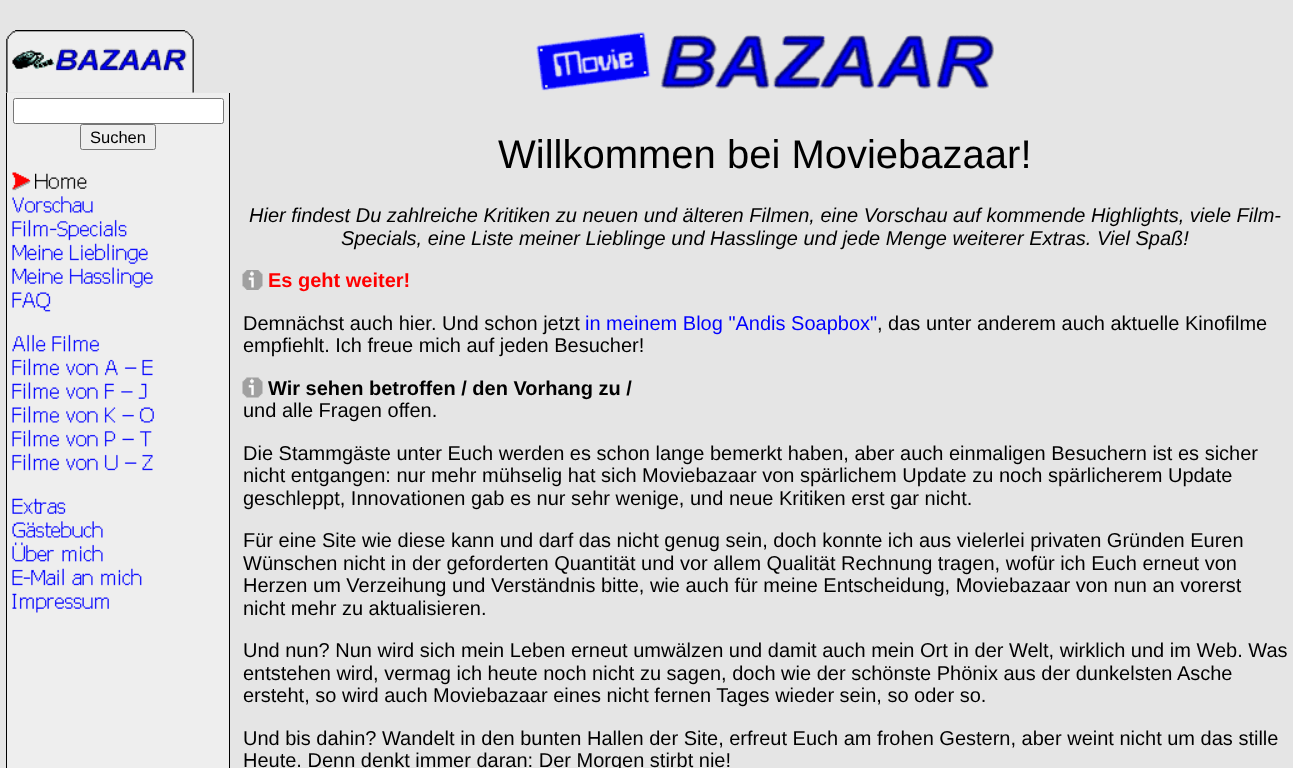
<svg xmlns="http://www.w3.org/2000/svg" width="1293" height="768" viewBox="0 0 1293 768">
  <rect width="100%" height="100%" fill="#e5e5e5"/>
  <image x="6" y="30" width="188" height="63" href="img1.png"/>
  <image x="536" y="32" width="459" height="59" href="img2.png"/>
  <rect x="7" y="93" width="222" height="675" fill="#eeeeee"/>
  <rect x="229" y="93" width="1" height="675" fill="#000000"/>
  <rect x="6" y="93" width="1" height="675" fill="#000000"/>
  <rect x="13.5" y="98.5" width="210" height="25" rx="2" fill="#ffffff" stroke="#767676"/>
  <rect x="80.5" y="124.5" width="75" height="25" rx="2" fill="none" stroke="#767676"/>
  <text x="90" y="143" font-family="Liberation Sans" font-size="16.5" fill="#000000">Suchen</text>
  <image x="12" y="172" width="19" height="19" href="img3.png"/>
  <image x="35" y="173" width="52" height="16" href="img4.png"/>
  <image x="12" y="196" width="81" height="17" href="img5.png"/>
  <image x="12" y="219" width="115" height="22" href="img6.png"/>
  <image x="12" y="243" width="136" height="21" href="img7.png"/>
  <image x="12" y="267" width="141" height="21" href="img8.png"/>
  <image x="12" y="292" width="39" height="20" href="img9.png"/>
  <image x="12" y="334" width="87" height="18" href="img10.png"/>
  <image x="12" y="358" width="141" height="18" href="img11.png"/>
  <image x="12" y="382" width="135" height="17" href="img12.png"/>
  <image x="12" y="406" width="142" height="17" href="img13.png"/>
  <image x="12" y="429" width="140" height="18" href="img14.png"/>
  <image x="12" y="453" width="141" height="18" href="img15.png"/>
  <image x="12" y="498" width="54" height="16" href="img16.png"/>
  <image x="12" y="521" width="91" height="17" href="img17.png"/>
  <image x="12" y="542" width="91" height="20" href="img18.png"/>
  <image x="12" y="568" width="130" height="18" href="img19.png"/>
  <image x="12" y="593" width="97" height="20" href="img20.png"/>
  <text x="498" y="168" font-family="Liberation Sans" font-size="40" fill="#000000">Willkommen bei Moviebazaar!</text>
  <text x="249" y="222" font-family="Liberation Sans" font-size="20" font-style="italic" fill="#000000">Hier findest Du zahlreiche Kritiken zu neuen und älteren Filmen, eine Vorschau auf kommende Highlights, viele Film-</text>
  <text x="341" y="245" font-family="Liberation Sans" font-size="20" font-style="italic" fill="#000000">Specials, eine Liste meiner Lieblinge und Hasslinge und jede Menge weiterer Extras. Viel Spaß!</text>
  <image x="242" y="270" width="21" height="20" href="img21.png"/>
  <text x="268" y="287" font-family="Liberation Sans" font-size="20" font-weight="bold" fill="#ff0000">Es geht weiter!</text>
  <text x="243" y="330" font-family="Liberation Sans" font-size="20" fill="#000000">Demnächst auch hier. Und schon jetzt</text>
  <text x="585" y="330" font-family="Liberation Sans" font-size="20" fill="#0000ff">in meinem Blog "Andis Soapbox"</text>
  <text x="877" y="330" font-family="Liberation Sans" font-size="20" fill="#000000">, das unter anderem auch aktuelle Kinofilme</text>
  <text x="243" y="352" font-family="Liberation Sans" font-size="20" fill="#000000">empfiehlt. Ich freue mich auf jeden Besucher!</text>
  <image x="242" y="377" width="21" height="21" href="img22.png"/>
  <text x="268" y="395" font-family="Liberation Sans" font-size="20" font-weight="bold" fill="#000000">Wir sehen betroffen / den Vorhang zu /</text>
  <text x="243" y="417" font-family="Liberation Sans" font-size="20" fill="#000000">und alle Fragen offen.</text>
  <text x="243" y="460" font-family="Liberation Sans" font-size="20" fill="#000000">Die Stammgäste unter Euch werden es schon lange bemerkt haben, aber auch einmaligen Besuchern ist es sicher</text>
  <text x="243" y="482" font-family="Liberation Sans" font-size="20" fill="#000000">nicht entgangen: nur mehr mühselig hat sich Moviebazaar von spärlichem Update zu noch spärlicherem Update</text>
  <text x="243" y="505" font-family="Liberation Sans" font-size="20" fill="#000000">geschleppt, Innovationen gab es nur sehr wenige, und neue Kritiken erst gar nicht.</text>
  <text x="243" y="547" font-family="Liberation Sans" font-size="20" fill="#000000">Für eine Site wie diese kann und darf das nicht genug sein, doch konnte ich aus vielerlei privaten Gründen Euren</text>
  <text x="243" y="570" font-family="Liberation Sans" font-size="20" fill="#000000">Wünschen nicht in der geforderten Quantität und vor allem Qualität Rechnung tragen, wofür ich Euch erneut von</text>
  <text x="243" y="592" font-family="Liberation Sans" font-size="20" fill="#000000">Herzen um Verzeihung und Verständnis bitte, wie auch für meine Entscheidung, Moviebazaar von nun an vorerst</text>
  <text x="243" y="615" font-family="Liberation Sans" font-size="20" fill="#000000">nicht mehr zu aktualisieren.</text>
  <text x="243" y="657" font-family="Liberation Sans" font-size="20" fill="#000000">Und nun? Nun wird sich mein Leben erneut umwälzen und damit auch mein Ort in der Welt, wirklich und im Web. Was</text>
  <text x="243" y="680" font-family="Liberation Sans" font-size="20" fill="#000000">entstehen wird, vermag ich heute noch nicht zu sagen, doch wie der schönste Phönix aus der dunkelsten Asche</text>
  <text x="243" y="702" font-family="Liberation Sans" font-size="20" fill="#000000">ersteht, so wird auch Moviebazaar eines nicht fernen Tages wieder sein, so oder so.</text>
  <text x="243" y="745" font-family="Liberation Sans" font-size="20" fill="#000000">Und bis dahin? Wandelt in den bunten Hallen der Site, erfreut Euch am frohen Gestern, aber weint nicht um das stille</text>
  <text x="243" y="767" font-family="Liberation Sans" font-size="20" fill="#000000">Heute. Denn denkt immer daran: Der Morgen stirbt nie!</text>
</svg>
